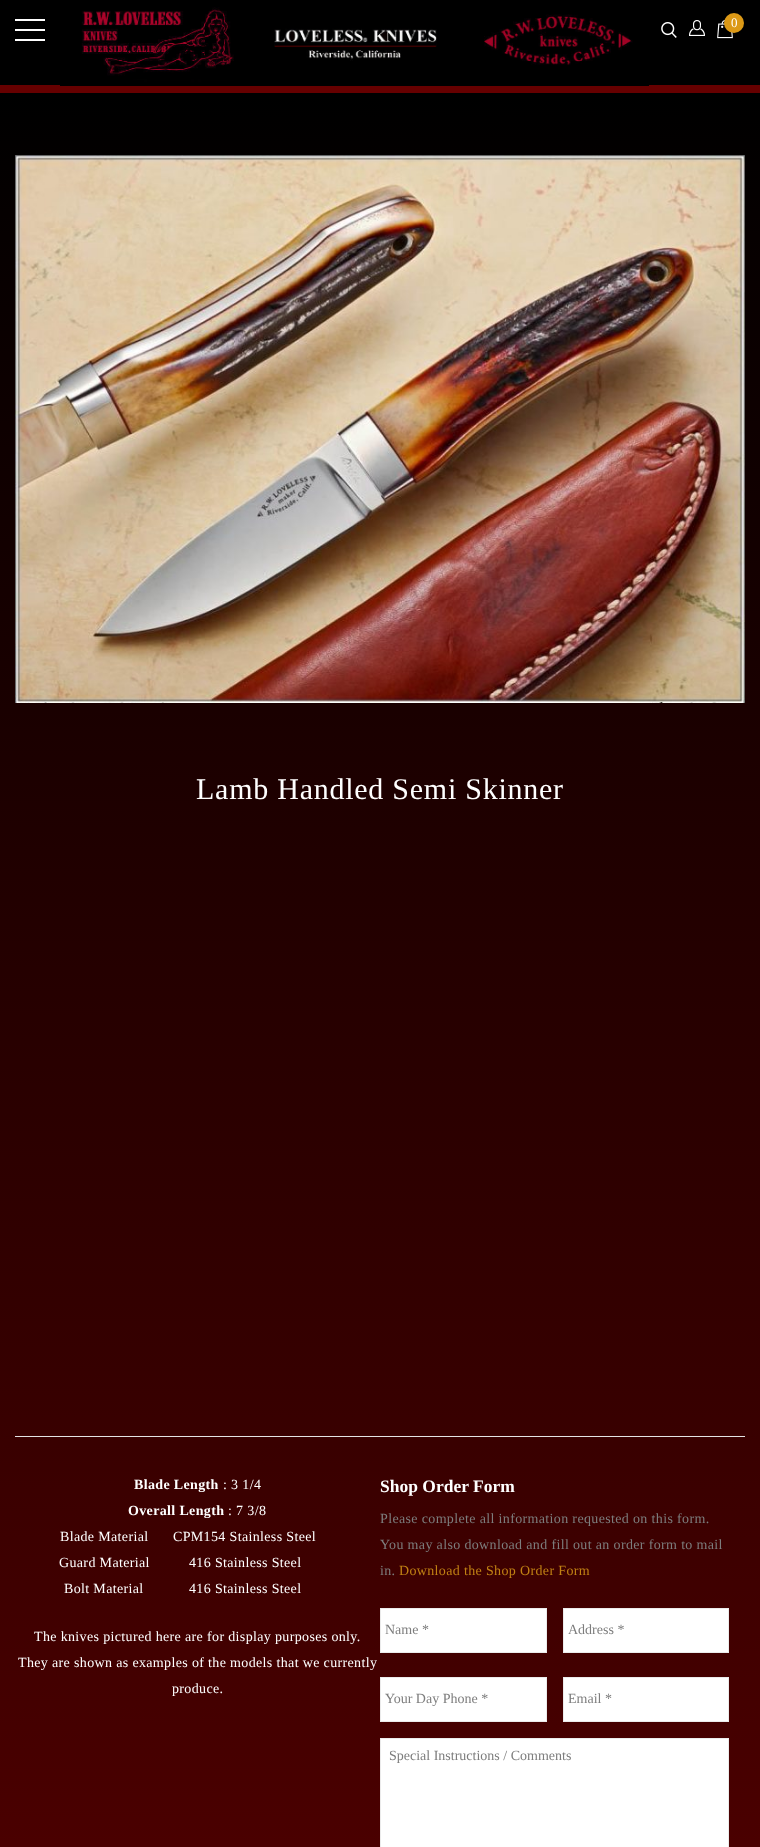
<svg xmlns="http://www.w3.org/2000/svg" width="760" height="1847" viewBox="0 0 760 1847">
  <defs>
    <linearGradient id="g1" gradientUnits="userSpaceOnUse" x1="380" y1="95" x2="380" y2="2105"><stop offset="0" stop-color="#000000"/><stop offset="1" stop-color="#550000"/></linearGradient>
  </defs>
  <rect width="100%" height="100%" fill="#ffffff"/>
  <rect x="0" y="0" width="760" height="95" fill="#000000"/>
  <rect x="0" y="85" width="760" height="8" fill="#660000"/>
  <rect x="15" y="19" width="30" height="2" fill="#ffffff"/>
  <rect x="15" y="29" width="30" height="2" fill="#ffffff"/>
  <rect x="15" y="39" width="30" height="2" fill="#ffffff"/>
  <image x="60" y="7" width="589" height="79" href="img1.png"/>
  <image x="661" y="22" width="16" height="16" href="img2.png"/>
  <image x="689" y="20" width="16" height="16" href="img3.png"/>
  <image x="717" y="20" width="16" height="19" href="img4.png"/>
  <circle cx="734" cy="23" r="10" fill="#dc9916"/>
  <text x="731" y="27" font-family="Liberation Serif" font-size="13" letter-spacing="0.35" fill="#ffffff">0</text>
  <rect x="0" y="95" width="760" height="1752" fill="url(#g1)"/>
  <image x="15" y="155" width="730" height="548" href="img5.png"/>
  <text x="196" y="799" font-family="Liberation Serif" font-size="30" letter-spacing="0.75" fill="#ffffff">Lamb Handled Semi Skinner</text>
  <rect x="15" y="1436" width="730" height="1" fill="#e3e3e4"/>
  <text x="134" y="1489" font-family="Liberation Serif" font-size="14" font-weight="bold" letter-spacing="0.35" fill="#ffffff">Blade Length</text>
  <text x="223" y="1489" font-family="Liberation Serif" font-size="14" letter-spacing="0.35" fill="#ffffff">: 3 1/4</text>
  <text x="128" y="1515" font-family="Liberation Serif" font-size="14" font-weight="bold" letter-spacing="0.35" fill="#ffffff">Overall Length</text>
  <text x="228" y="1515" font-family="Liberation Serif" font-size="14" letter-spacing="0.35" fill="#ffffff">: 7 3/8</text>
  <text x="60" y="1541" font-family="Liberation Serif" font-size="14" letter-spacing="0.35" fill="#ffffff">Blade Material</text>
  <text x="59" y="1567" font-family="Liberation Serif" font-size="14" letter-spacing="0.35" fill="#ffffff">Guard Material</text>
  <text x="64" y="1593" font-family="Liberation Serif" font-size="14" letter-spacing="0.35" fill="#ffffff">Bolt Material</text>
  <text x="173" y="1541" font-family="Liberation Serif" font-size="14" letter-spacing="0.35" fill="#ffffff">CPM154 Stainless Steel</text>
  <text x="189" y="1567" font-family="Liberation Serif" font-size="14" letter-spacing="0.35" fill="#ffffff">416 Stainless Steel</text>
  <text x="189" y="1593" font-family="Liberation Serif" font-size="14" letter-spacing="0.35" fill="#ffffff">416 Stainless Steel</text>
  <text x="34" y="1641" font-family="Liberation Serif" font-size="14" letter-spacing="0.35" fill="#ffffff">The knives pictured here are for display purposes only.</text>
  <text x="18" y="1667" font-family="Liberation Serif" font-size="14" letter-spacing="0.35" fill="#ffffff">They are shown as examples of the models that we currently</text>
  <text x="172" y="1693" font-family="Liberation Serif" font-size="14" letter-spacing="0.35" fill="#ffffff">produce.</text>
  <text x="380" y="1492" font-family="Liberation Serif" font-size="17.5" font-weight="bold" fill="#ffffff">Shop Order Form</text>
  <text x="380" y="1523" font-family="Liberation Serif" font-size="14" letter-spacing="0.35" fill="#7d7d7d">Please complete all information requested on this form.</text>
  <text x="380" y="1549" font-family="Liberation Serif" font-size="14" letter-spacing="0.35" fill="#7d7d7d">You may also download and fill out an order form to mail</text>
  <text x="380" y="1575" font-family="Liberation Serif" font-size="14" letter-spacing="0.35" fill="#7d7d7d">in.</text>
  <text x="399" y="1575" font-family="Liberation Serif" font-size="14" letter-spacing="0.35" fill="#c18113">Download the Shop Order Form</text>
  <rect x="380.5" y="1608.5" width="166" height="44" fill="#ffffff" stroke="#ebebeb"/>
  <text x="385" y="1634" font-family="Liberation Serif" font-size="14" fill="#7d7d7d">Name *</text>
  <rect x="563.5" y="1608.5" width="165" height="44" fill="#ffffff" stroke="#ebebeb"/>
  <text x="568" y="1634" font-family="Liberation Serif" font-size="14" fill="#7d7d7d">Address *</text>
  <rect x="380.5" y="1677.5" width="166" height="44" fill="#ffffff" stroke="#ebebeb"/>
  <text x="385" y="1703" font-family="Liberation Serif" font-size="14" fill="#7d7d7d">Your Day Phone *</text>
  <rect x="563.5" y="1677.5" width="165" height="44" fill="#ffffff" stroke="#ebebeb"/>
  <text x="568" y="1703" font-family="Liberation Serif" font-size="14" fill="#7d7d7d">Email *</text>
  <rect x="380.5" y="1738.5" width="348" height="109" fill="#ffffff" stroke="#ebebeb"/>
  <text x="389" y="1760" font-family="Liberation Serif" font-size="14" fill="#7d7d7d">Special Instructions / Comments</text>
</svg>
